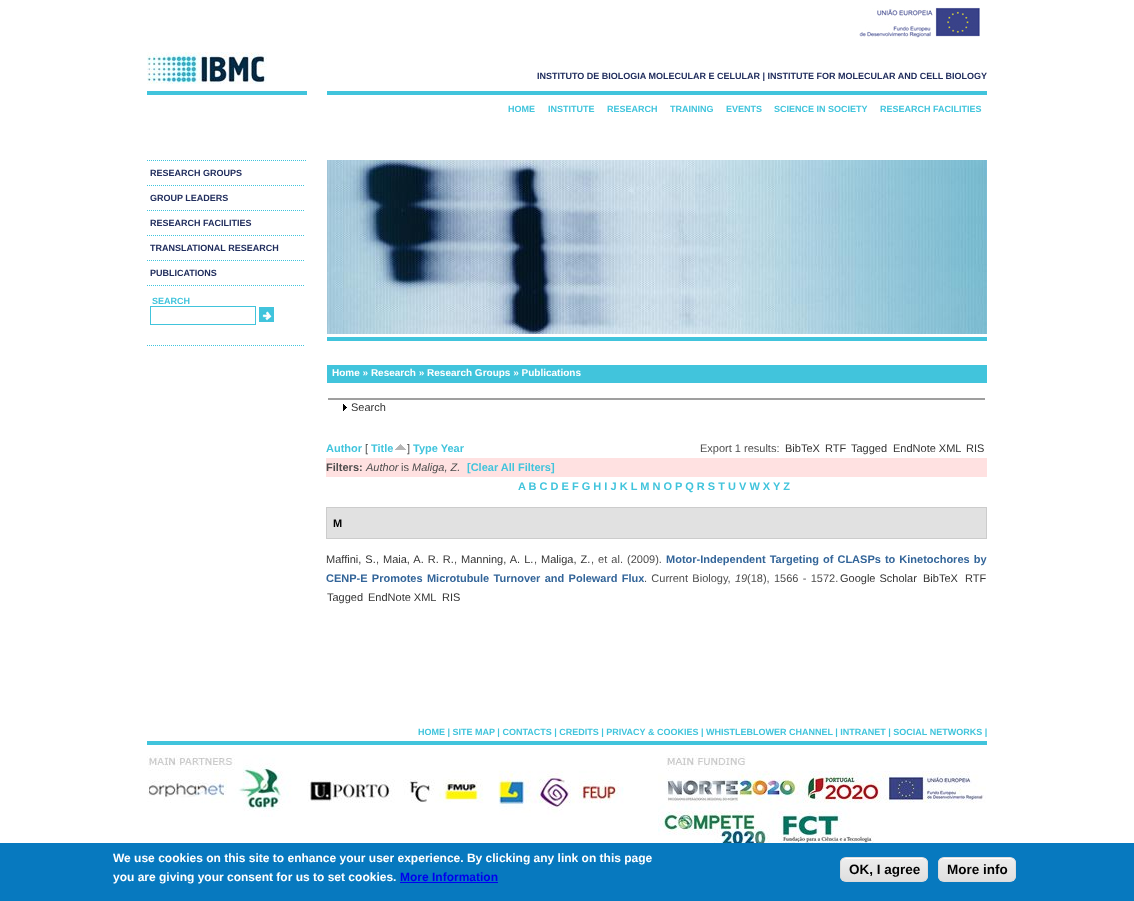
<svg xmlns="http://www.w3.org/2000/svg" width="1134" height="901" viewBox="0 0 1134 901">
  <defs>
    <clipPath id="clip1"><rect x="840" y="857" width="88" height="25" rx="6"/></clipPath>
    <linearGradient id="g1" gradientUnits="userSpaceOnUse" x1="884" y1="858" x2="884" y2="881"><stop offset="0.05" stop-color="#ededed"/><stop offset="1" stop-color="#dfdfdf"/></linearGradient>
    <clipPath id="clip2"><rect x="938" y="857" width="78" height="25" rx="6"/></clipPath>
    <linearGradient id="g2" gradientUnits="userSpaceOnUse" x1="977" y1="858" x2="977" y2="881"><stop offset="0.05" stop-color="#ededed"/><stop offset="1" stop-color="#dfdfdf"/></linearGradient>
  </defs>
  <rect width="100%" height="100%" fill="#ffffff"/>
  <image x="859" y="7" width="121" height="31" href="img1.png"/>
  <rect x="147" y="91" width="160" height="4" fill="#41c4dc"/>
  <image x="147" y="52" width="120" height="32" href="img2.png"/>
  <rect x="327" y="91" width="660" height="4" fill="#41c4dc"/>
  <text x="537" y="79" font-family="Liberation Sans" font-size="9" font-weight="bold" fill="#202d5d">INSTITUTO DE BIOLOGIA MOLECULAR E CELULAR | INSTITUTE FOR MOLECULAR AND CELL BIOLOGY</text>
  <text x="508" y="112" font-family="Liberation Sans" font-size="9" font-weight="bold" fill="#41c4dc">HOME</text>
  <text x="548" y="112" font-family="Liberation Sans" font-size="9" font-weight="bold" fill="#41c4dc">INSTITUTE</text>
  <text x="607" y="112" font-family="Liberation Sans" font-size="9" font-weight="bold" fill="#41c4dc">RESEARCH</text>
  <text x="670" y="112" font-family="Liberation Sans" font-size="9" font-weight="bold" fill="#41c4dc">TRAINING</text>
  <text x="726" y="112" font-family="Liberation Sans" font-size="9" font-weight="bold" fill="#41c4dc">EVENTS</text>
  <text x="774" y="112" font-family="Liberation Sans" font-size="9" font-weight="bold" fill="#41c4dc">SCIENCE IN SOCIETY</text>
  <text x="880" y="112" font-family="Liberation Sans" font-size="9" font-weight="bold" fill="#41c4dc">RESEARCH FACILITIES</text>
  <text x="150" y="176" font-family="Liberation Sans" font-size="9" font-weight="bold" fill="#202d5d">RESEARCH GROUPS</text>
  <path d="M147 185.5H305" fill="none" stroke="#41c4dc" stroke-dasharray="1 1"/>
  <text x="150" y="201" font-family="Liberation Sans" font-size="9" font-weight="bold" fill="#202d5d">GROUP LEADERS</text>
  <path d="M147 210.5H305" fill="none" stroke="#41c4dc" stroke-dasharray="1 1"/>
  <text x="150" y="226" font-family="Liberation Sans" font-size="9" font-weight="bold" fill="#202d5d">RESEARCH FACILITIES</text>
  <path d="M147 235.5H305" fill="none" stroke="#41c4dc" stroke-dasharray="1 1"/>
  <text x="150" y="251" font-family="Liberation Sans" font-size="9" font-weight="bold" fill="#202d5d">TRANSLATIONAL RESEARCH</text>
  <path d="M147 260.5H305" fill="none" stroke="#41c4dc" stroke-dasharray="1 1"/>
  <text x="150" y="276" font-family="Liberation Sans" font-size="9" font-weight="bold" fill="#202d5d">PUBLICATIONS</text>
  <path d="M147 160.5H307" fill="none" stroke="#41c4dc" stroke-dasharray="1 1"/>
  <path d="M147 285.5H305" fill="none" stroke="#41c4dc" stroke-dasharray="1 1"/>
  <path d="M147 345.5H305" fill="none" stroke="#41c4dc" stroke-dasharray="1 1"/>
  <text x="152" y="304" font-family="Liberation Sans" font-size="9" font-weight="bold" fill="#41c4dc">SEARCH</text>
  <rect x="150.5" y="306.5" width="105" height="18" fill="none" stroke="#41c4dc"/>
  <image x="260" y="308" width="13" height="13" href="img3.png"/>
  <rect x="259.5" y="307.5" width="14" height="14" fill="none" stroke="#41c4dc"/>
  <rect x="327" y="337" width="660" height="4" fill="#41c4dc"/>
  <image x="327" y="160" width="660" height="174" href="img4.png"/>
  <rect x="327" y="365" width="660" height="18" fill="#41c4dc"/>
  <text x="332" y="376" font-family="Liberation Sans" font-size="10" font-weight="bold" fill="#ffffff">Home » Research » Research Groups » Publications</text>
  <rect x="328" y="398" width="657" height="2" fill="#9f9f9f"/>
  <image x="343" y="404" width="4" height="7" href="img5.png"/>
  <text x="351" y="411" font-family="Liberation Sans" font-size="11" fill="#333333">Search</text>
  <text x="326" y="452" font-family="Liberation Sans" font-size="11" font-weight="bold" fill="#41c4dc">Author</text>
  <text x="365" y="452" font-family="Liberation Sans" font-size="11" fill="#4d4d4d">[</text>
  <text x="371" y="452" font-family="Liberation Sans" font-size="11" font-weight="bold" fill="#41c4dc">Title</text>
  <image x="395" y="444" width="11" height="6" href="img6.png"/>
  <text x="407" y="452" font-family="Liberation Sans" font-size="11" fill="#4d4d4d">]</text>
  <text x="413" y="452" font-family="Liberation Sans" font-size="11" font-weight="bold" fill="#41c4dc">Type Year</text>
  <text x="700" y="452" font-family="Liberation Sans" font-size="11" fill="#4d4d4d">Export 1 results:</text>
  <text x="785" y="452" font-family="Liberation Sans" font-size="11" fill="#333333">BibTeX</text>
  <text x="825" y="452" font-family="Liberation Sans" font-size="11" fill="#333333">RTF</text>
  <text x="851" y="452" font-family="Liberation Sans" font-size="11" fill="#333333">Tagged</text>
  <text x="893" y="452" font-family="Liberation Sans" font-size="11" fill="#333333">EndNote XML</text>
  <text x="966" y="452" font-family="Liberation Sans" font-size="11" fill="#333333">RIS</text>
  <rect x="326" y="458" width="661" height="19" fill="#ffe1e1"/>
  <text x="326" y="471" font-family="Liberation Sans" font-size="11" font-weight="bold" fill="#4d4d4d">Filters:</text>
  <text x="366" y="471" font-family="Liberation Sans" font-size="11" font-style="italic" fill="#4d4d4d">Author</text>
  <text x="401" y="471" font-family="Liberation Sans" font-size="11" fill="#4d4d4d">is</text>
  <text x="412" y="471" font-family="Liberation Sans" font-size="11" font-style="italic" fill="#4d4d4d">Maliga, Z.</text>
  <text x="467" y="471" font-family="Liberation Sans" font-size="11" font-weight="bold" fill="#41c4dc">[Clear All Filters]</text>
  <text x="518" y="490" font-family="Liberation Sans" font-size="11" font-weight="bold" fill="#41c4dc">A B C D E F G H I J K L M N O P Q R S T U V W X Y Z</text>
  <rect x="326.5" y="507.5" width="660" height="31" fill="#e1e1e1" stroke="#cccccc"/>
  <text x="333" y="527" font-family="Liberation Sans" font-size="11" font-weight="bold" fill="#000000">M</text>
  <text x="326" y="563" word-spacing="1" font-family="Liberation Sans" font-size="11" fill="#333333">Maffini, S.</text>
  <text x="376" y="563" font-family="Liberation Sans" font-size="11" fill="#4d4d4d">,</text>
  <text x="383" y="563" word-spacing="1" font-family="Liberation Sans" font-size="11" fill="#333333">Maia, A. R. R.</text>
  <text x="454" y="563" font-family="Liberation Sans" font-size="11" fill="#4d4d4d">,</text>
  <text x="461" y="563" word-spacing="1" font-family="Liberation Sans" font-size="11" fill="#333333">Manning, A. L.</text>
  <text x="534" y="563" font-family="Liberation Sans" font-size="11" fill="#4d4d4d">,</text>
  <text x="541" y="563" word-spacing="1" font-family="Liberation Sans" font-size="11" fill="#333333">Maliga, Z.</text>
  <text x="591" y="563" word-spacing="1" font-family="Liberation Sans" font-size="11" fill="#4d4d4d">, et al.</text>
  <text x="627" y="563" font-family="Liberation Sans" font-size="11" fill="#4d4d4d">(2009).</text>
  <text x="666" y="563" word-spacing="1" font-family="Liberation Sans" font-size="11" font-weight="bold" fill="#336599">Motor-Independent Targeting of CLASPs to Kinetochores by</text>
  <text x="326" y="582" word-spacing="1.25" font-family="Liberation Sans" font-size="11" font-weight="bold" fill="#336599">CENP-E Promotes Microtubule Turnover and Poleward Flux</text>
  <text x="644" y="582" word-spacing="1.25" font-family="Liberation Sans" font-size="11" fill="#4d4d4d">. Current Biology,</text>
  <text x="735" y="582" font-family="Liberation Sans" font-size="11" font-style="italic" fill="#4d4d4d">19</text>
  <text x="747" y="582" word-spacing="1.25" font-family="Liberation Sans" font-size="11" fill="#4d4d4d">(18), 1566 - 1572.</text>
  <text x="840" y="582" word-spacing="1" font-family="Liberation Sans" font-size="11" fill="#333333">Google Scholar</text>
  <text x="923" y="582" font-family="Liberation Sans" font-size="11" fill="#333333">BibTeX</text>
  <text x="965" y="582" font-family="Liberation Sans" font-size="11" fill="#333333">RTF</text>
  <text x="327" y="601" font-family="Liberation Sans" font-size="11" fill="#333333">Tagged</text>
  <text x="368" y="601" font-family="Liberation Sans" font-size="11" fill="#333333">EndNote XML</text>
  <text x="442" y="601" font-family="Liberation Sans" font-size="11" fill="#333333">RIS</text>
  <text x="418" y="735" font-family="Liberation Sans" font-size="9" font-weight="bold" fill="#41c4dc">HOME | SITE MAP | CONTACTS | CREDITS | PRIVACY &amp; COOKIES | WHISTLEBLOWER CHANNEL | INTRANET | SOCIAL NETWORKS |</text>
  <rect x="147" y="741" width="840" height="4" fill="#41c4dc"/>
  <image x="147" y="755" width="477" height="62" href="img7.png"/>
  <image x="658" y="755" width="328" height="88" href="img8.png"/>
  <rect x="0" y="843" width="1134" height="58" fill="#0779bf"/>
  <text x="113" y="862" font-family="Liberation Sans" font-size="12" font-weight="bold" fill="#ffffff">We use cookies on this site to enhance your user experience. By clicking any link on this page</text>
  <text x="113" y="881" font-family="Liberation Sans" font-size="12" font-weight="bold" fill="#ffffff">you are giving your consent for us to set cookies.</text>
  <text x="400" y="881" font-family="Liberation Sans" font-size="12" font-weight="bold" fill="#0000ee">More Information</text>
  <rect x="400" y="882" width="98" height="1" fill="#0000ee"/>
  <g clip-path="url(#clip1)">
    <rect x="840" y="858" width="88" height="23" fill="url(#g1)"/>
  </g>
  <path d="M846 859H922C925 859 927 861 927 864C927 855 915 858 909 858H859C853 858 841 855 841 864C841 861 843 859 846 859Z" fill="#ffffff"/>
  <rect x="840.5" y="857.5" width="87" height="24" rx="5.5" fill="none" stroke="#dcdcdc"/>
  <text x="849" y="874" font-family="Liberation Sans" font-size="13.5" font-weight="bold" fill="#000000">OK, I agree</text>
  <g clip-path="url(#clip2)">
    <rect x="938" y="858" width="78" height="23" fill="url(#g2)"/>
  </g>
  <path d="M944 859H1010C1013 859 1015 861 1015 864C1015 855 1005 858 999 858H955C949 858 939 855 939 864C939 861 941 859 944 859Z" fill="#ffffff"/>
  <rect x="938.5" y="857.5" width="77" height="24" rx="5.5" fill="none" stroke="#dcdcdc"/>
  <text x="947" y="874" font-family="Liberation Sans" font-size="13.5" font-weight="bold" fill="#000000">More info</text>
</svg>
